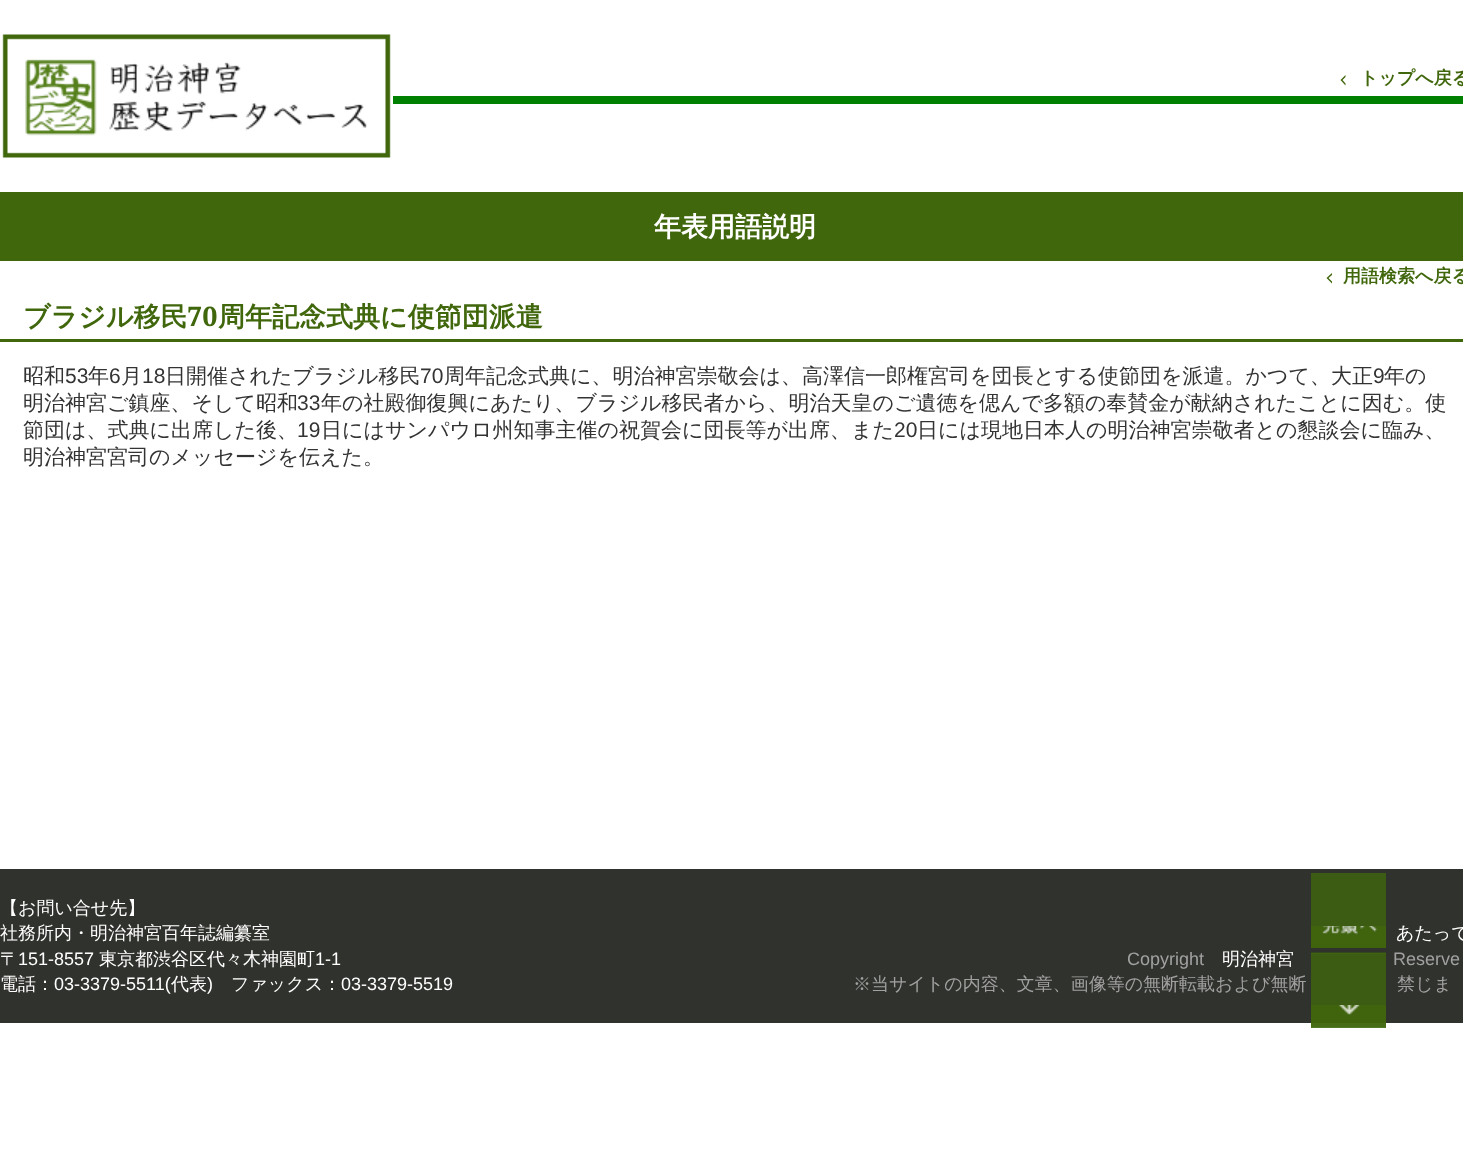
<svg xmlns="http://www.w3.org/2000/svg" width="1463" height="1166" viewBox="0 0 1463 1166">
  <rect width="100%" height="100%" fill="#ffffff"/>
  <rect x="393" y="96" width="1070" height="8" fill="#008000"/>
  <image x="0" y="34" width="393" height="124" href="img1.png"/>
  <path d="M1345.5 85.5L1340.5 80H1342.5L1345.5 83.5ZM1340.5 80L1345.5 75V77L1342.5 80Z" fill="#40670c"/>
  <text x="1360" y="84" font-family="WenQuanYi Zen Hei" font-size="18" font-weight="bold" fill="#40670c">トップへ戻る</text>
  <rect x="0" y="192" width="1463" height="69" fill="#40670c"/>
  <text x="654" y="236" font-family="WenQuanYi Zen Hei" font-size="27" font-weight="bold" fill="#ffffff">年表用語説明</text>
  <path d="M1332 283.5L1326.5 278H1328.5L1332 281.5ZM1326.5 278L1332 273V275L1328.5 278Z" fill="#40670c"/>
  <text x="1343" y="282" font-family="WenQuanYi Zen Hei" font-size="18" font-weight="bold" fill="#40670c">用語検索へ戻る</text>
  <rect x="0" y="339" width="1463" height="3" fill="#40670c"/>
  <text x="23" y="326" font-family="WenQuanYi Zen Hei" font-size="27" font-weight="bold" fill="#40670c">ブラジル移民</text>
  <text x="187" y="326" font-family="Noto Serif" font-size="27" font-weight="bold" fill="#40670c">70</text>
  <text x="218" y="326" font-family="WenQuanYi Zen Hei" font-size="27" font-weight="bold" fill="#40670c">周年記念式典に使節団派遣</text>
  <text x="23" y="383" font-family="WenQuanYi Zen Hei" font-size="21" font-weight="500" fill="#333333">昭和</text>
  <text x="65" y="383" font-family="Liberation Sans" font-size="21" fill="#333333">53</text>
  <text x="88" y="383" font-family="WenQuanYi Zen Hei" font-size="21" font-weight="500" fill="#333333">年</text>
  <text x="109" y="383" font-family="Liberation Sans" font-size="21" fill="#333333">6</text>
  <text x="121" y="383" font-family="WenQuanYi Zen Hei" font-size="21" font-weight="500" fill="#333333">月</text>
  <text x="142" y="383" font-family="Liberation Sans" font-size="21" fill="#333333">18</text>
  <text x="165" y="383" font-family="WenQuanYi Zen Hei" font-size="21" font-weight="500" fill="#333333">日開催されたブラジル移民</text>
  <text x="420" y="383" font-family="Liberation Sans" font-size="21" fill="#333333">70</text>
  <text x="444" y="383" font-family="WenQuanYi Zen Hei" font-size="21" font-weight="500" fill="#333333">周年記念式典に、明治神宮崇敬会は、高澤信一郎権宮司を団長とする使節団を派遣。かつて、大正</text>
  <text x="1373" y="383" font-family="Liberation Sans" font-size="21" fill="#333333">9</text>
  <text x="1384" y="383" font-family="WenQuanYi Zen Hei" font-size="21" font-weight="500" fill="#333333">年の</text>
  <text x="23" y="410" font-family="WenQuanYi Zen Hei" font-size="21" font-weight="500" fill="#333333">明治神宮ご鎮座、そして昭和</text>
  <text x="297" y="410" font-family="Liberation Sans" font-size="21" fill="#333333">33</text>
  <text x="321" y="410" font-family="WenQuanYi Zen Hei" font-size="21" font-weight="500" fill="#333333">年の社殿御復興にあたり、ブラジル移民者から、明治天皇のご遺徳を偲んで多額の奉賛金が献納されたことに因む。使</text>
  <text x="23" y="437" font-family="WenQuanYi Zen Hei" font-size="21" font-weight="500" fill="#333333">節団は、式典に出席した後、</text>
  <text x="297" y="437" font-family="Liberation Sans" font-size="21" fill="#333333">19</text>
  <text x="321" y="437" font-family="WenQuanYi Zen Hei" font-size="21" font-weight="500" fill="#333333">日にはサンパウロ州知事主催の祝賀会に団長等が出席、また</text>
  <text x="894" y="437" font-family="Liberation Sans" font-size="21" fill="#333333">20</text>
  <text x="917" y="437" font-family="WenQuanYi Zen Hei" font-size="21" font-weight="500" fill="#333333">日には現地日本人の明治神宮崇敬者との懇談会に臨み、</text>
  <text x="23" y="464" font-family="WenQuanYi Zen Hei" font-size="21" font-weight="500" fill="#333333">明治神宮宮司のメッセージを伝えた。</text>
  <rect x="0" y="869" width="1463" height="154" fill="#30322d"/>
  <rect x="1311" y="873" width="75" height="75" fill="#40670c" fill-opacity="0.8"/>
  <image x="1311" y="926" width="75" height="28" href="img2.png"/>
  <rect x="1311" y="953" width="75" height="75" fill="#40670c" fill-opacity="0.8"/>
  <image x="1311" y="1005" width="75" height="23" href="img3.png"/>
  <text x="0" y="914" font-family="WenQuanYi Zen Hei" font-size="18" font-weight="500" fill="#ffffff">【お問い合せ先】</text>
  <text x="0" y="939" font-family="WenQuanYi Zen Hei" font-size="18" font-weight="500" fill="#ffffff">社務所内・明治神宮百年誌編纂室</text>
  <text x="0" y="965" font-family="WenQuanYi Zen Hei" font-size="18" font-weight="500" fill="#ffffff">〒</text>
  <text x="18" y="965" font-family="Liberation Sans" font-size="18" fill="#ffffff">151-8557</text>
  <text x="99" y="965" font-family="WenQuanYi Zen Hei" font-size="18" font-weight="500" fill="#ffffff">東京都渋谷区代々木神園町</text>
  <text x="315" y="965" font-family="Liberation Sans" font-size="18" fill="#ffffff">1-1</text>
  <text x="0" y="990" font-family="WenQuanYi Zen Hei" font-size="18" font-weight="500" fill="#ffffff">電話：</text>
  <text x="54" y="990" font-family="Liberation Sans" font-size="18" fill="#ffffff">03-3379-5511(</text>
  <text x="171" y="990" font-family="WenQuanYi Zen Hei" font-size="18" font-weight="500" fill="#ffffff">代表</text>
  <text x="207" y="990" font-family="Liberation Sans" font-size="18" fill="#ffffff">)</text>
  <text x="231" y="990" font-family="WenQuanYi Zen Hei" font-size="18" font-weight="500" fill="#ffffff">ファックス：</text>
  <text x="341" y="990" font-family="Liberation Sans" font-size="18" fill="#ffffff">03-3379-5519</text>
  <text x="1396" y="939" font-family="WenQuanYi Zen Hei" font-size="18" font-weight="500" fill="#ffffff">あたって</text>
  <text x="1127" y="965" font-family="Liberation Sans" font-size="18" fill="#a1a1a1">Copyright</text>
  <text x="1222" y="965" font-family="WenQuanYi Zen Hei" font-size="18" font-weight="500" fill="#ffffff">明治神宮</text>
  <text x="1393" y="965" font-family="Liberation Sans" font-size="18" fill="#a1a1a1">Reserve</text>
  <text x="853" y="990" font-family="WenQuanYi Zen Hei" font-size="18" font-weight="500" fill="#a1a1a1">※当サイトの内容、文章、画像等の無断転載および無断</text>
  <text x="1397" y="990" font-family="WenQuanYi Zen Hei" font-size="18" font-weight="500" fill="#a1a1a1">禁じま</text>
</svg>
